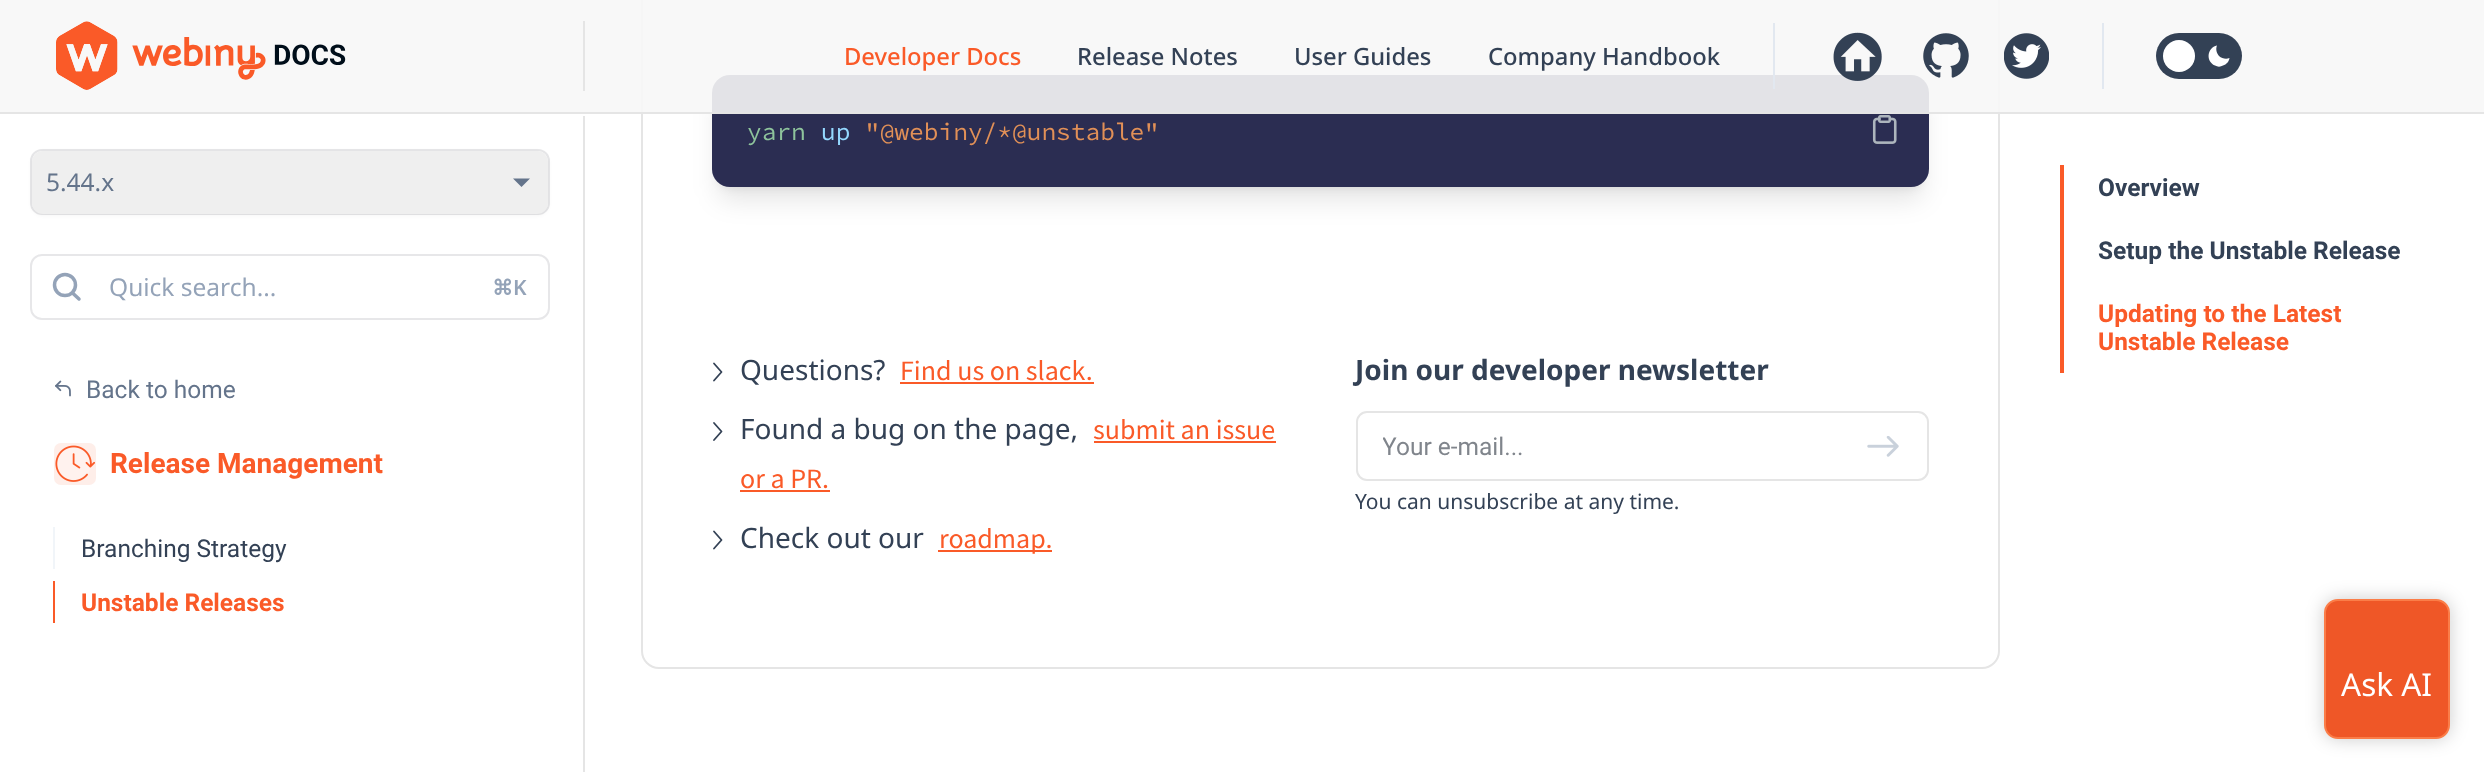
<svg xmlns="http://www.w3.org/2000/svg" width="2484" height="772" viewBox="0 0 2484 772">
  <defs>
    <filter id="blur1" x="-50%" y="-200%" width="200%" height="500%"><feGaussianBlur stdDeviation="5"/></filter>
    <filter id="blur2" x="-50%" y="-200%" width="200%" height="500%"><feGaussianBlur stdDeviation="13"/></filter>
    <filter id="blur3" x="-50%" y="-200%" width="200%" height="500%"><feGaussianBlur stdDeviation="2"/></filter>
    <clipPath id="clip1"><rect x="1383" y="432" width="453" height="28"/></clipPath>
    <filter id="blur4" x="-50%" y="-200%" width="200%" height="500%"><feGaussianBlur stdDeviation="9"/></filter>
  </defs>
  <rect width="100%" height="100%" fill="#ffffff"/>
  <rect x="642" y="-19" width="1357" height="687" rx="17" fill="none" stroke="#e5e5e5" stroke-width="2"/>
  <rect x="719" y="89" width="1203" height="98" rx="11" fill="#000000" fill-opacity="0.1" filter="url(#blur1)"/>
  <rect x="718" y="98" width="1205" height="102" rx="12" fill="#000000" fill-opacity="0.1" filter="url(#blur2)"/>
  <rect x="712" y="75" width="1217" height="112" rx="18" fill="#2b2d52"/>
  <rect x="0" y="112" width="2484" height="2" fill="#e5e5e5"/>
  <rect x="0" y="0" width="2484" height="112" fill="#f7f7f7" fill-opacity="0.9"/>
  <rect x="583" y="21" width="2" height="70" fill="#e5e5e5"/>
  <image x="56" y="21" width="290" height="69" href="img1.png"/>
  <text x="844" y="65" font-family="Noto Sans" font-size="23.75" font-weight="500" fill="#fa5a28">Developer Docs</text>
  <text x="1077" y="65" font-family="Noto Sans" font-size="23.75" font-weight="500" fill="#334155">Release Notes</text>
  <text x="1294" y="65" font-family="Noto Sans" font-size="23.75" font-weight="500" fill="#334155">User Guides</text>
  <text x="1488" y="65" font-family="Noto Sans" font-size="23.75" font-weight="500" fill="#334155">Company Handbook</text>
  <rect x="1773" y="23" width="2" height="66" fill="#e2e8f0"/>
  <image x="1833" y="32" width="49" height="49" href="img2.png"/>
  <image x="1923" y="33" width="46" height="45" href="img3.png"/>
  <image x="2004" y="33" width="45" height="46" href="img4.png"/>
  <rect x="2102" y="23" width="2" height="66" fill="#e2e8f0"/>
  <rect x="2156" y="33" width="86" height="46" rx="23" fill="#334155"/>
  <circle cx="2179" cy="56" r="16" fill="#ffffff"/>
  <path d="M2219 56C2216.5 53 2215.5 49 2217 45.5C2207 47.5 2205.5 61.5 2215 65.5C2217.5 67 2220.5 67 2223 65.5C2226.5 64.5 2229 61.5 2229.5 58C2226 59.5 2222 58.5 2219 56Z" fill="#ffffff"/>
  <rect x="583" y="116" width="2" height="656" fill="#e5e5e5"/>
  <rect x="32" y="152" width="516" height="63" rx="11" fill="#000000" fill-opacity="0.05" filter="url(#blur3)"/>
  <rect x="31" y="150" width="518" height="64" rx="11" fill="none" stroke="#0f172a" stroke-opacity="0.1" stroke-width="2"/>
  <rect x="32" y="151" width="516" height="63" rx="11" fill="#efefef"/>
  <text x="46" y="191" font-family="Noto Sans" font-size="24.5" fill="#64748b">5.44.x</text>
  <path d="M513 178.5H530L521.5 187Z" fill="#64748b"/>
  <rect x="31" y="255" width="518" height="64" rx="11" fill="none" stroke="#0f172a" stroke-opacity="0.1" stroke-width="2"/>
  <path d="M79 299L72.5 293" fill="none" stroke="#94a3b8" stroke-width="3.5" stroke-linecap="round" stroke-linejoin="round"/>
  <circle cx="65" cy="285" r="10.5" fill="none" stroke="#94a3b8" stroke-width="3.5"/>
  <text x="109" y="296" font-family="Noto Sans" font-size="24.5" fill="#94a3b8">Quick search...</text>
  <text x="492" y="295" font-family="DejaVu Sans" font-size="21" font-weight="bold" fill="#94a3b8">⌘</text>
  <text x="513" y="295" font-family="Noto Sans" font-size="21" font-weight="600" fill="#94a3b8">K</text>
  <image x="55" y="380" width="16" height="17" href="img5.png"/>
  <text x="86" y="398" font-family="Roboto" font-size="24.5" fill="#64748b">Back to home</text>
  <rect x="54" y="443" width="42" height="42" rx="7" fill="#feeee9"/>
  <image x="55" y="445" width="40" height="37" href="img6.png"/>
  <text x="110" y="473" font-family="Roboto" font-size="28" font-weight="bold" fill="#fa5a28">Release Management</text>
  <rect x="53" y="527" width="2" height="42" fill="#f1f5f9"/>
  <text x="81" y="557" font-family="Roboto" font-size="24.5" fill="#334155">Branching Strategy</text>
  <rect x="53" y="581" width="2" height="42" fill="#fa5a28"/>
  <text x="81" y="611" font-family="Roboto" font-size="24.5" font-weight="bold" fill="#fa5a28">Unstable Releases</text>
  <text x="747" y="140" font-family="Source Code Pro" font-size="24.5" fill="#8ec39c">yarn</text>
  <text x="821" y="140" font-family="Source Code Pro" font-size="24.5" fill="#94d8ff">up</text>
  <text x="865" y="140" font-family="Source Code Pro" font-size="24.5" fill="#e19057">"@webiny/*@unstable"</text>
  <image x="1872" y="115" width="25" height="29" href="img7.png"/>
  <rect x="2060" y="165" width="4" height="208" fill="#fa5a28"/>
  <text x="2098" y="196" font-family="Roboto" font-size="24.5" font-weight="bold" fill="#334155">Overview</text>
  <text x="2098" y="259" font-family="Roboto" font-size="24.5" font-weight="bold" fill="#334155">Setup the Unstable Release</text>
  <text x="2098" y="322" font-family="Roboto" font-size="24.5" font-weight="bold" fill="#fa5a28">Updating to the Latest</text>
  <text x="2098" y="350" font-family="Roboto" font-size="24.5" font-weight="bold" fill="#fa5a28">Unstable Release</text>
  <path d="M714 380.5L721.5 372L714 363.5" fill="none" stroke="#334155" stroke-width="1.8" stroke-linecap="round" stroke-linejoin="round"/>
  <text x="740" y="380" font-family="Noto Sans" font-size="28" fill="#334155">Questions?</text>
  <text x="900" y="380" font-family="Source Sans Pro" font-size="28" fill="#fa5a28">Find us on slack.</text>
  <rect x="900" y="382" width="194" height="2" fill="#fa5a28"/>
  <path d="M714 440L721.5 431.5L714 423" fill="none" stroke="#334155" stroke-width="1.8" stroke-linecap="round" stroke-linejoin="round"/>
  <text x="740" y="439" font-family="Noto Sans" font-size="28" fill="#334155">Found a bug on the page,</text>
  <text x="1093" y="439" font-family="Source Sans Pro" font-size="28" fill="#fa5a28">submit an issue</text>
  <rect x="1094" y="441" width="182" height="2" fill="#fa5a28"/>
  <text x="740" y="488" font-family="Source Sans Pro" font-size="28" fill="#fa5a28">or a PR.</text>
  <rect x="740" y="490" width="90" height="2" fill="#fa5a28"/>
  <path d="M714 548.5L721.5 540L714 531.5" fill="none" stroke="#334155" stroke-width="1.8" stroke-linecap="round" stroke-linejoin="round"/>
  <text x="740" y="548" font-family="Noto Sans" font-size="28" fill="#334155">Check out our</text>
  <rect x="938" y="550" width="114" height="2" fill="#fa5a28"/>
  <text x="939" y="548" font-family="Source Sans Pro" font-size="28" fill="#fa5a28">roadmap.</text>
  <text x="1355" y="380" font-family="Noto Sans" font-size="28" font-weight="bold" fill="#334155">Join our developer newsletter</text>
  <rect x="1357" y="412" width="571" height="68" rx="10" fill="none" stroke="#e5e5e5" stroke-width="2"/>
  <g clip-path="url(#clip1)">
    <text x="1382" y="455" font-family="Roboto" font-size="24.5" fill="#80858c">Your e-mail...</text>
  </g>
  <image x="1867" y="436" width="32" height="21" href="img8.png"/>
  <text x="1355" y="509" font-family="Noto Sans" font-size="21" fill="#334155">You can unsubscribe at any time.</text>
  <rect x="2324" y="599" width="126" height="140" rx="14" fill="#000000" fill-opacity="0.2" filter="url(#blur4)"/>
  <rect x="2325" y="600" width="124" height="138" rx="13" fill="#ef5727" stroke="#fb7d48" stroke-width="2"/>
  <text x="2341" y="696" font-family="Noto Sans" font-size="31.5" fill="#ffffff">Ask AI</text>
</svg>
